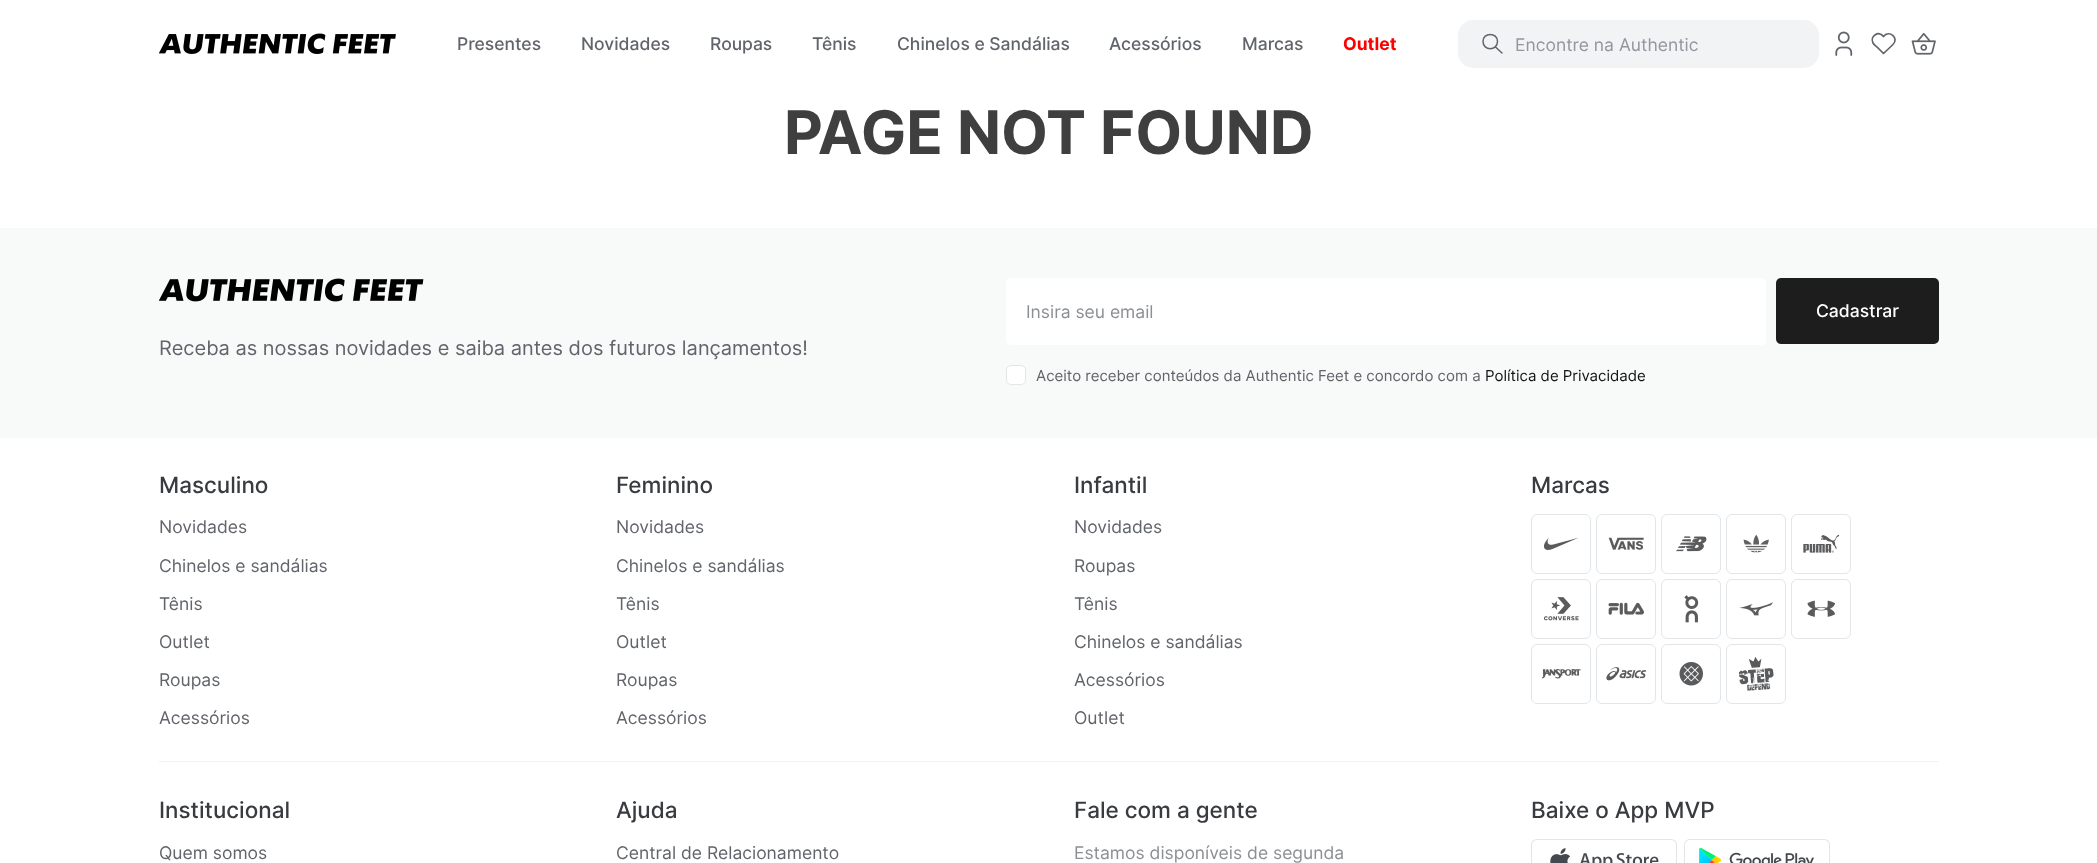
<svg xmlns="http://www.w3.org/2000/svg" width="2097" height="863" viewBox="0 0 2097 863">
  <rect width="100%" height="100%" fill="#ffffff"/>
  <image x="159" y="33" width="237" height="21" href="img1.png"/>
  <text x="457" y="50" font-family="Inter" font-size="17.5" font-weight="500" fill="#61656b">Presentes</text>
  <text x="581" y="50" font-family="Inter" font-size="17.5" font-weight="500" fill="#61656b">Novidades</text>
  <text x="710" y="50" font-family="Inter" font-size="17.5" font-weight="500" fill="#61656b">Roupas</text>
  <text x="812" y="50" font-family="Inter" font-size="17.5" font-weight="500" fill="#61656b">Tênis</text>
  <text x="897" y="50" font-family="Inter" font-size="17.5" font-weight="500" fill="#61656b">Chinelos e Sandálias</text>
  <text x="1109" y="50" font-family="Inter" font-size="17.5" font-weight="500" fill="#61656b">Acessórios</text>
  <text x="1242" y="50" font-family="Inter" font-size="17.5" font-weight="500" fill="#61656b">Marcas</text>
  <text x="1343" y="50" font-family="Inter" font-size="17.5" font-weight="bold" fill="#fe0000">Outlet</text>
  <rect x="1458" y="20" width="361" height="48" rx="15" fill="#f2f3f5"/>
  <path d="M1502 53L1495.5 47M1497.5 41.5C1497.5 51 1483 51 1483 41.5C1483 32 1497.5 32 1497.5 41.5Z" fill="none" stroke="#61656b" stroke-width="1.5" stroke-linecap="round" stroke-linejoin="round"/>
  <text x="1515" y="51" font-family="Inter" font-size="17.5" fill="#92969d">Encontre na Authentic</text>
  <image x="1835" y="31" width="18" height="25" href="img2.png"/>
  <path d="M1893 44.5L1883.5 53.5L1877.5 47.5C1876 46 1874 45 1873 43C1869.5 36 1879 30 1883.5 36.5C1889 29 1899.5 38.5 1893 44.5" fill="none" stroke="#61656b" stroke-width="1.7" stroke-linecap="round" stroke-linejoin="round"/>
  <image x="1911" y="32" width="25" height="23" href="img3.png"/>
  <text x="784" y="154" font-family="Inter" font-size="60" font-weight="bold" fill="#3f3f40">PAGE NOT FOUND</text>
  <rect x="0" y="228" width="2097" height="210" fill="#f8f9f9"/>
  <image x="159" y="278" width="265" height="24" href="img4.png"/>
  <text x="159" y="355" font-family="Inter" font-size="20" fill="#61656b">Receba as nossas novidades e saiba antes dos futuros lançamentos!</text>
  <rect x="1006" y="278" width="760" height="67" rx="5" fill="#ffffff"/>
  <text x="1026" y="318" font-family="Inter" font-size="17.5" fill="#8c8f94">Insira seu email</text>
  <rect x="1776" y="278" width="163" height="66" rx="5" fill="#1d1d1d"/>
  <text x="1816" y="317" font-family="Inter" font-size="17.5" font-weight="500" fill="#ffffff">Cadastrar</text>
  <rect x="1006.5" y="365.5" width="19" height="19" rx="4.5" fill="#ffffff" stroke="#e3e6e8"/>
  <text x="1036" y="381" font-family="Inter" font-size="15" fill="#61656b">Aceito receber conteúdos da Authentic Feet e concordo com a</text>
  <text x="1485" y="381" font-family="Inter" font-size="15" fill="#121416">Política de Privacidade</text>
  <rect x="159" y="761" width="1780" height="1" fill="#f2f3f5"/>
  <text x="159" y="493" font-family="Inter" font-size="22.5" font-weight="500" fill="#383b3f">Masculino</text>
  <text x="159" y="533" font-family="Inter" font-size="17.5" fill="#61656b">Novidades</text>
  <text x="159" y="572" font-family="Inter" font-size="17.5" fill="#61656b">Chinelos e sandálias</text>
  <text x="159" y="610" font-family="Inter" font-size="17.5" fill="#61656b">Tênis</text>
  <text x="159" y="648" font-family="Inter" font-size="17.5" fill="#61656b">Outlet</text>
  <text x="159" y="686" font-family="Inter" font-size="17.5" fill="#61656b">Roupas</text>
  <text x="159" y="724" font-family="Inter" font-size="17.5" fill="#61656b">Acessórios</text>
  <text x="616" y="493" font-family="Inter" font-size="22.5" font-weight="500" fill="#383b3f">Feminino</text>
  <text x="616" y="533" font-family="Inter" font-size="17.5" fill="#61656b">Novidades</text>
  <text x="616" y="572" font-family="Inter" font-size="17.5" fill="#61656b">Chinelos e sandálias</text>
  <text x="616" y="610" font-family="Inter" font-size="17.5" fill="#61656b">Tênis</text>
  <text x="616" y="648" font-family="Inter" font-size="17.5" fill="#61656b">Outlet</text>
  <text x="616" y="686" font-family="Inter" font-size="17.5" fill="#61656b">Roupas</text>
  <text x="616" y="724" font-family="Inter" font-size="17.5" fill="#61656b">Acessórios</text>
  <text x="1074" y="493" font-family="Inter" font-size="22.5" font-weight="500" fill="#383b3f">Infantil</text>
  <text x="1074" y="533" font-family="Inter" font-size="17.5" fill="#61656b">Novidades</text>
  <text x="1074" y="572" font-family="Inter" font-size="17.5" fill="#61656b">Roupas</text>
  <text x="1074" y="610" font-family="Inter" font-size="17.5" fill="#61656b">Tênis</text>
  <text x="1074" y="648" font-family="Inter" font-size="17.5" fill="#61656b">Chinelos e sandálias</text>
  <text x="1074" y="686" font-family="Inter" font-size="17.5" fill="#61656b">Acessórios</text>
  <text x="1074" y="724" font-family="Inter" font-size="17.5" fill="#61656b">Outlet</text>
  <text x="1531" y="493" font-family="Inter" font-size="22.5" font-weight="500" fill="#383b3f">Marcas</text>
  <rect x="1531.5" y="514.5" width="59" height="59" rx="5.5" fill="none" stroke="#e3e6e8"/>
  <image x="1543" y="537" width="35" height="13" href="img5.png"/>
  <rect x="1596.5" y="514.5" width="59" height="59" rx="5.5" fill="none" stroke="#e3e6e8"/>
  <image x="1608" y="537" width="36" height="13" href="img6.png"/>
  <rect x="1661.5" y="514.5" width="59" height="59" rx="5.5" fill="none" stroke="#e3e6e8"/>
  <image x="1676" y="536" width="31" height="16" href="img7.png"/>
  <rect x="1726.5" y="514.5" width="59" height="59" rx="5.5" fill="none" stroke="#e3e6e8"/>
  <image x="1743" y="534" width="26" height="19" href="img8.png"/>
  <rect x="1791.5" y="514.5" width="59" height="59" rx="5.5" fill="none" stroke="#e3e6e8"/>
  <image x="1803" y="534" width="37" height="19" href="img9.png"/>
  <rect x="1531.5" y="579.5" width="59" height="59" rx="5.5" fill="none" stroke="#e3e6e8"/>
  <image x="1544" y="597" width="35" height="24" href="img10.png"/>
  <rect x="1596.5" y="579.5" width="59" height="59" rx="5.5" fill="none" stroke="#e3e6e8"/>
  <image x="1608" y="602" width="36" height="13" href="img11.png"/>
  <rect x="1661.5" y="579.5" width="59" height="59" rx="5.5" fill="none" stroke="#e3e6e8"/>
  <image x="1684" y="595" width="15" height="28" href="img12.png"/>
  <rect x="1726.5" y="579.5" width="59" height="59" rx="5.5" fill="none" stroke="#e3e6e8"/>
  <image x="1739" y="602" width="34" height="14" href="img13.png"/>
  <rect x="1791.5" y="579.5" width="59" height="59" rx="5.5" fill="none" stroke="#e3e6e8"/>
  <image x="1807" y="600" width="28" height="17" href="img14.png"/>
  <rect x="1531.5" y="644.5" width="59" height="59" rx="5.5" fill="none" stroke="#e3e6e8"/>
  <image x="1541" y="669" width="40" height="10" href="img15.png"/>
  <rect x="1596.5" y="644.5" width="59" height="59" rx="5.5" fill="none" stroke="#e3e6e8"/>
  <image x="1606" y="667" width="40" height="14" href="img16.png"/>
  <rect x="1661.5" y="644.5" width="59" height="59" rx="5.5" fill="none" stroke="#e3e6e8"/>
  <image x="1679" y="662" width="24" height="24" href="img17.png"/>
  <rect x="1726.5" y="644.5" width="59" height="59" rx="5.5" fill="none" stroke="#e3e6e8"/>
  <image x="1739" y="657" width="35" height="34" href="img18.png"/>
  <text x="159" y="818" font-family="Inter" font-size="22.5" font-weight="500" fill="#383b3f">Institucional</text>
  <text x="159" y="859" font-family="Inter" font-size="17.5" fill="#61656b">Quem somos</text>
  <text x="616" y="818" font-family="Inter" font-size="22.5" font-weight="500" fill="#383b3f">Ajuda</text>
  <text x="616" y="859" font-family="Inter" font-size="17.5" fill="#61656b">Central de Relacionamento</text>
  <text x="1074" y="818" font-family="Inter" font-size="22.5" font-weight="500" fill="#383b3f">Fale com a gente</text>
  <text x="1074" y="859" font-family="Inter" font-size="17.5" fill="#8c8f94">Estamos disponíveis de segunda</text>
  <text x="1531" y="818" font-family="Inter" font-size="22.5" font-weight="500" fill="#383b3f">Baixe o App MVP</text>
  <image x="1531" y="839" width="146" height="24" href="img19.png"/>
  <image x="1684" y="839" width="146" height="24" href="img20.png"/>
</svg>
